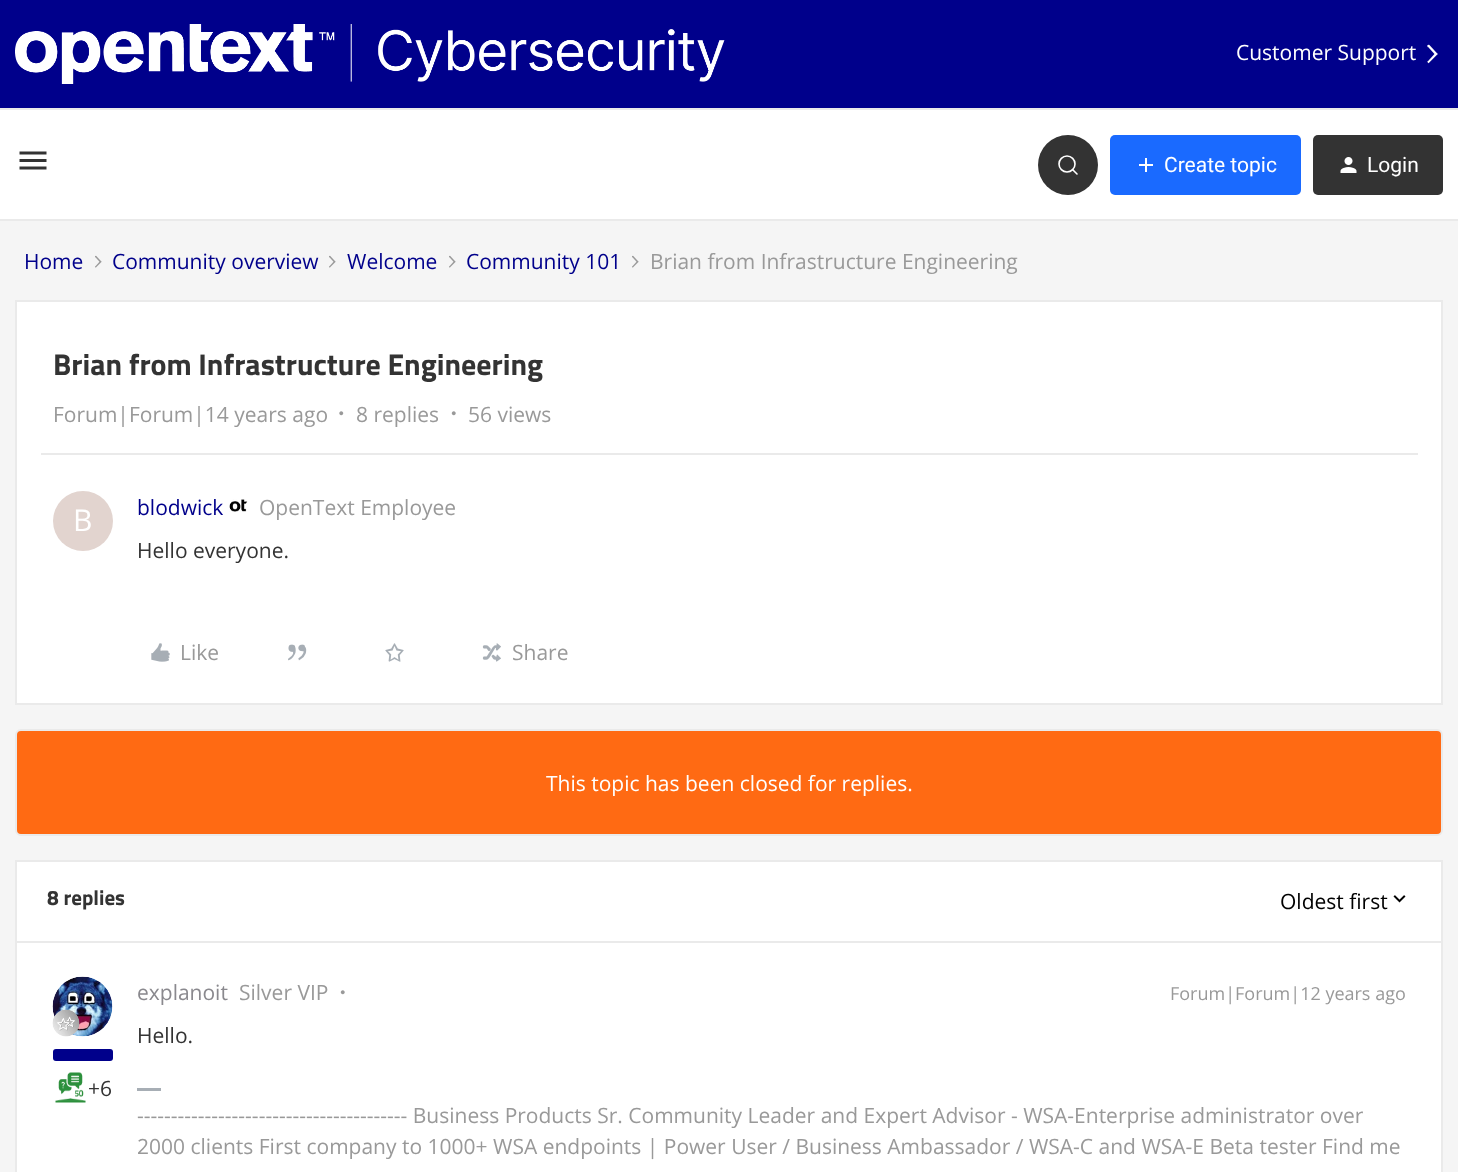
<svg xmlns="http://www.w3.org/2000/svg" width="1458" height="1172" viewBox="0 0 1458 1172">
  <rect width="100%" height="100%" fill="#f5f5f5"/>
  <rect x="0" y="0" width="1458" height="108" fill="#00008b"/>
  <image x="15" y="24" width="710" height="60" href="img1.png"/>
  <text x="1236" y="60" font-family="Open Sans" font-size="21" fill="#ffffff">Customer Support</text>
  <image x="1427" y="44" width="11" height="20" href="img2.png"/>
  <rect x="0" y="110" width="1458" height="109" fill="#ffffff"/>
  <rect x="0" y="108" width="1458" height="2" fill="#eaeaea"/>
  <rect x="0" y="219" width="1458" height="2" fill="#eaeaea"/>
  <image x="19" y="151" width="28" height="19" href="img3.png"/>
  <circle cx="1068" cy="165" r="30" fill="#333333"/>
  <circle cx="1067" cy="164" r="8" fill="none" stroke="#ffffff" stroke-width="1.6"/>
  <path d="M1072.5 169.5L1077 174" fill="none" stroke="#ffffff" stroke-width="1.6" stroke-linecap="round"/>
  <rect x="1110" y="135" width="191" height="60" rx="5" fill="#1a6aff"/>
  <image x="1139" y="158" width="14" height="14" href="img4.png"/>
  <text x="1164" y="172" font-family="Roboto" font-size="21" fill="#ffffff">Create topic</text>
  <rect x="1313" y="135" width="130" height="60" rx="5" fill="#333333"/>
  <image x="1340" y="157" width="17" height="16" href="img5.png"/>
  <text x="1367" y="172" font-family="Roboto" font-size="21" fill="#ffffff">Login</text>
  <text x="24" y="269" font-family="Open Sans" font-size="21" fill="#00008b">Home</text>
  <image x="95" y="255" width="7" height="13" href="img6.png"/>
  <text x="112" y="269" font-family="Open Sans" font-size="21" fill="#00008b">Community overview</text>
  <image x="329" y="255" width="7" height="13" href="img6.png"/>
  <text x="347" y="269" font-family="Open Sans" font-size="21" fill="#00008b">Welcome</text>
  <image x="449" y="255" width="7" height="13" href="img6.png"/>
  <text x="466" y="269" font-family="Open Sans" font-size="21" fill="#00008b">Community 101</text>
  <image x="632" y="255" width="7" height="13" href="img6.png"/>
  <text x="650" y="269" font-family="Open Sans" font-size="21" fill="#999999">Brian from Infrastructure Engineering</text>
  <rect x="16" y="301" width="1426" height="403" fill="#ffffff" stroke="#eaeaea" stroke-width="2"/>
  <text x="53" y="375" font-family="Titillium" font-size="30" font-weight="bold" fill="#333333">Brian from Infrastructure Engineering</text>
  <text x="53" y="422" font-family="Open Sans" font-size="21" fill="#999999">Forum|Forum|14 years ago</text>
  <image x="339" y="411" width="5" height="5" href="img7.png"/>
  <text x="356" y="422" font-family="Open Sans" font-size="21" fill="#999999">8 replies</text>
  <image x="451" y="411" width="5" height="5" href="img8.png"/>
  <text x="468" y="422" font-family="Open Sans" font-size="21" fill="#999999">56 views</text>
  <rect x="41" y="453" width="1377" height="2" fill="#eaeaea"/>
  <circle cx="83" cy="521" r="30" fill="#e2d4cf"/>
  <text x="73" y="531" font-family="Open Sans" font-size="30" fill="#ffffff">B</text>
  <text x="137" y="515" font-family="Open Sans" font-size="21" fill="#00008b">blodwick</text>
  <image x="229" y="499" width="19" height="13" href="img9.png"/>
  <text x="259" y="515" font-family="Open Sans" font-size="21" fill="#999999">OpenText Employee</text>
  <text x="137" y="558" font-family="Open Sans" font-size="21" fill="#333333">Hello everyone.</text>
  <image x="151" y="643" width="19" height="19" href="img10.png"/>
  <text x="180" y="660" font-family="Open Sans" font-size="21" fill="#999999">Like</text>
  <image x="288" y="644" width="19" height="17" href="img11.png"/>
  <image x="385" y="643" width="19" height="19" href="img12.png"/>
  <image x="482" y="643" width="19" height="19" href="img13.png"/>
  <text x="512" y="660" font-family="Open Sans" font-size="21" fill="#999999">Share</text>
  <rect x="16" y="730" width="1426" height="105" rx="5" fill="#ff6a13" stroke="#eaeaea" stroke-width="2"/>
  <text x="546" y="791" font-family="Open Sans" font-size="21" fill="#ffffff">This topic has been closed for replies.</text>
  <rect x="16" y="861" width="1426" height="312" fill="#ffffff" stroke="#eaeaea" stroke-width="2"/>
  <rect x="17" y="941" width="1425" height="2" fill="#eaeaea"/>
  <text x="47" y="905" font-family="Titillium" font-size="21" font-weight="bold" fill="#333333">8 replies</text>
  <text x="1280" y="909" font-family="Open Sans" font-size="21" fill="#000000">Oldest first</text>
  <image x="1393" y="895" width="13" height="8" href="img14.png"/>
  <text x="137" y="1000" font-family="Open Sans" font-size="21" fill="#8a898e">explanoit</text>
  <text x="239" y="1000" font-family="Open Sans" font-size="21" fill="#999999">Silver VIP</text>
  <image x="340" y="990" width="5" height="5" href="img8.png"/>
  <text x="1170" y="1000" font-family="Open Sans" font-size="18" fill="#999999">Forum|Forum|12 years ago</text>
  <text x="137" y="1043" font-family="Open Sans" font-size="21" fill="#333333">Hello.</text>
  <image x="52" y="976" width="61" height="61" href="img15.png"/>
  <image x="52" y="1009" width="28" height="28" href="img16.png"/>
  <rect x="53" y="1049" width="60" height="12" rx="3" fill="#00008b"/>
  <image x="55" y="1072" width="31" height="31" href="img17.png"/>
  <text x="88" y="1096" font-family="Open Sans" font-size="21" fill="#333333">+6</text>
  <rect x="137" y="1088" width="24" height="3" fill="#a7aeb5"/>
  <text x="137" y="1123" font-family="Open Sans" font-size="21" fill="#999999">---------------------------------------- Business Products Sr. Community Leader and Expert Advisor - WSA-Enterprise administrator over</text>
  <text x="137" y="1154" font-family="Open Sans" font-size="21" fill="#999999">2000 clients First company to 1000+ WSA endpoints | Power User / Business Ambassador / WSA-C and WSA-E Beta tester Find me</text>
</svg>
